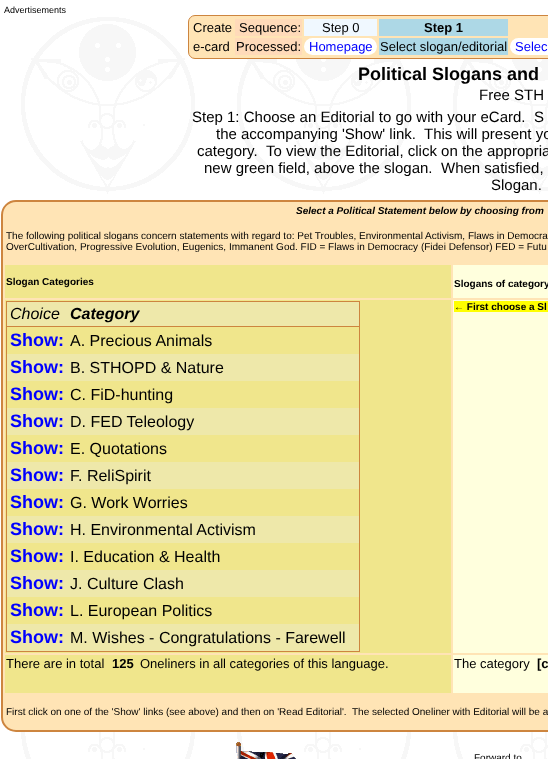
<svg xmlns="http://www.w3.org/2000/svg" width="548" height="759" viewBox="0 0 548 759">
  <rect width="100%" height="100%" fill="#ffffff"/>
  <image x="21" y="17" width="527" height="742" href="img1.png"/>
  <text x="4" y="13" font-family="Liberation Sans" font-size="9" fill="#000000">Advertisements</text>
  <rect x="188.5" y="15.5" width="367" height="43" rx="6.5" fill="#ffe4b5" stroke="#cd853f"/>
  <text x="193" y="32" font-family="Liberation Sans" font-size="13" fill="#000000">Create</text>
  <rect x="235" y="19" width="67" height="17" fill="#ffdab9"/>
  <text x="239" y="32" font-family="Liberation Sans" font-size="13" fill="#000000">Sequence:</text>
  <rect x="304" y="19" width="73" height="17" fill="#f0f8ff"/>
  <text x="322" y="32" font-family="Liberation Sans" font-size="13" fill="#000000">Step 0</text>
  <rect x="379" y="19" width="129" height="17" fill="#add8e6"/>
  <text x="424" y="32" font-family="Liberation Sans" font-size="13" font-weight="bold" fill="#000000">Step 1</text>
  <text x="193" y="51" font-family="Liberation Sans" font-size="13" fill="#000000">e-card</text>
  <rect x="235" y="38" width="67" height="17" fill="#ffdab9"/>
  <text x="236" y="51" font-family="Liberation Sans" font-size="13" fill="#000000">Processed:</text>
  <rect x="304" y="38" width="73" height="17" rx="8.5" fill="#ffffff"/>
  <text x="309" y="51" font-family="Liberation Sans" font-size="13" fill="#0000ff">Homepage</text>
  <rect x="379" y="38" width="129" height="17" fill="#add8e6"/>
  <text x="380" y="51" font-family="Liberation Sans" font-size="13" fill="#000000">Select slogan/editorial</text>
  <rect x="510" y="38" width="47" height="17" rx="8.5" fill="#ffffff"/>
  <text x="515" y="51" font-family="Liberation Sans" font-size="13" fill="#0000ff">Selec</text>
  <text x="358" y="80" font-family="Liberation Sans" font-size="18" font-weight="bold" fill="#000000">Political Slogans and</text>
  <text x="479" y="100" font-family="Liberation Sans" font-size="15" fill="#000000">Free STH</text>
  <text x="192" y="122" font-family="Liberation Sans" font-size="15" fill="#000000">Step 1: Choose an Editorial to go with your eCard.</text>
  <text x="534" y="122" font-family="Liberation Sans" font-size="15" fill="#000000">S</text>
  <text x="216" y="139" font-family="Liberation Sans" font-size="15" fill="#000000">the accompanying 'Show' link.</text>
  <text x="424" y="139" font-family="Liberation Sans" font-size="15" fill="#000000">This will present yo</text>
  <text x="197" y="156" font-family="Liberation Sans" font-size="15" fill="#000000">category.</text>
  <text x="266" y="156" font-family="Liberation Sans" font-size="15" fill="#000000">To view the Editorial, click on the appropria</text>
  <text x="204" y="173" font-family="Liberation Sans" font-size="15" fill="#000000">new green field, above the slogan.</text>
  <text x="441" y="173" font-family="Liberation Sans" font-size="15" fill="#000000">When satisfied,</text>
  <text x="491" y="190" font-family="Liberation Sans" font-size="15" fill="#000000">Slogan.</text>
  <rect x="2" y="201" width="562" height="530" rx="14" fill="#ffe4b5" stroke="#cd853f" stroke-width="2"/>
  <rect x="5" y="204" width="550" height="13" rx="6.5" fill="#ffe4b5"/>
  <text x="296" y="214" font-family="Liberation Sans" font-size="10" font-weight="bold" font-style="italic" fill="#000000">Select a Political Statement below by choosing from</text>
  <text x="6" y="239" font-family="Liberation Sans" font-size="10" fill="#000000">The following political slogans concern statements with regard to: Pet Troubles, Environmental Activism, Flaws in Democra</text>
  <text x="6" y="250" font-family="Liberation Sans" font-size="10" fill="#000000">OverCultivation, Progressive Evolution, Eugenics, Immanent God. FID = Flaws in Democracy (Fidei Defensor) FED = Futu</text>
  <rect x="5" y="265" width="446" height="33" fill="#f0e68c"/>
  <text x="6" y="285" font-family="Liberation Sans" font-size="10" font-weight="bold" fill="#000000">Slogan Categories</text>
  <rect x="453" y="265" width="95" height="33" fill="#ffffdd"/>
  <text x="454" y="287" font-family="Liberation Sans" font-size="10" font-weight="bold" fill="#000000">Slogans of category</text>
  <rect x="5" y="300" width="446" height="353" fill="#f0e68c"/>
  <rect x="6" y="301" width="354" height="1" fill="#cd853f"/>
  <rect x="359" y="301" width="1" height="351" fill="#cd853f"/>
  <rect x="6" y="651" width="354" height="1" fill="#cd853f"/>
  <rect x="6" y="301" width="1" height="351" fill="#cd853f"/>
  <rect x="7" y="302" width="352" height="24" fill="#eee8aa"/>
  <text x="10" y="319" font-family="Liberation Sans" font-size="16" font-style="italic" fill="#000000">Choice</text>
  <text x="70" y="319" font-family="Liberation Sans" font-size="16" font-weight="bold" font-style="italic" fill="#000000">Category</text>
  <rect x="6" y="326" width="354" height="1" fill="#cd853f"/>
  <text x="10" y="346" font-family="Liberation Sans" font-size="18" font-weight="bold" fill="#0000ff">Show:</text>
  <text x="70" y="346" font-family="Liberation Sans" font-size="16" fill="#000000">A. Precious Animals</text>
  <rect x="7" y="354" width="352" height="27" fill="#eee8aa"/>
  <text x="10" y="373" font-family="Liberation Sans" font-size="18" font-weight="bold" fill="#0000ff">Show:</text>
  <text x="70" y="373" font-family="Liberation Sans" font-size="16" fill="#000000">B. STHOPD &amp; Nature</text>
  <text x="10" y="400" font-family="Liberation Sans" font-size="18" font-weight="bold" fill="#0000ff">Show:</text>
  <text x="70" y="400" font-family="Liberation Sans" font-size="16" fill="#000000">C. FiD-hunting</text>
  <rect x="7" y="408" width="352" height="27" fill="#eee8aa"/>
  <text x="10" y="427" font-family="Liberation Sans" font-size="18" font-weight="bold" fill="#0000ff">Show:</text>
  <text x="70" y="427" font-family="Liberation Sans" font-size="16" fill="#000000">D. FED Teleology</text>
  <text x="10" y="454" font-family="Liberation Sans" font-size="18" font-weight="bold" fill="#0000ff">Show:</text>
  <text x="70" y="454" font-family="Liberation Sans" font-size="16" fill="#000000">E. Quotations</text>
  <rect x="7" y="462" width="352" height="27" fill="#eee8aa"/>
  <text x="10" y="481" font-family="Liberation Sans" font-size="18" font-weight="bold" fill="#0000ff">Show:</text>
  <text x="70" y="481" font-family="Liberation Sans" font-size="16" fill="#000000">F. ReliSpirit</text>
  <text x="10" y="508" font-family="Liberation Sans" font-size="18" font-weight="bold" fill="#0000ff">Show:</text>
  <text x="70" y="508" font-family="Liberation Sans" font-size="16" fill="#000000">G. Work Worries</text>
  <rect x="7" y="516" width="352" height="27" fill="#eee8aa"/>
  <text x="10" y="535" font-family="Liberation Sans" font-size="18" font-weight="bold" fill="#0000ff">Show:</text>
  <text x="70" y="535" font-family="Liberation Sans" font-size="16" fill="#000000">H. Environmental Activism</text>
  <text x="10" y="562" font-family="Liberation Sans" font-size="18" font-weight="bold" fill="#0000ff">Show:</text>
  <text x="70" y="562" font-family="Liberation Sans" font-size="16" fill="#000000">I. Education &amp; Health</text>
  <rect x="7" y="570" width="352" height="27" fill="#eee8aa"/>
  <text x="10" y="589" font-family="Liberation Sans" font-size="18" font-weight="bold" fill="#0000ff">Show:</text>
  <text x="70" y="589" font-family="Liberation Sans" font-size="16" fill="#000000">J. Culture Clash</text>
  <text x="10" y="616" font-family="Liberation Sans" font-size="18" font-weight="bold" fill="#0000ff">Show:</text>
  <text x="70" y="616" font-family="Liberation Sans" font-size="16" fill="#000000">L. European Politics</text>
  <rect x="7" y="624" width="352" height="27" fill="#eee8aa"/>
  <text x="10" y="643" font-family="Liberation Sans" font-size="18" font-weight="bold" fill="#0000ff">Show:</text>
  <text x="70" y="643" font-family="Liberation Sans" font-size="16" fill="#000000">M. Wishes - Congratulations - Farewell</text>
  <rect x="453" y="300" width="95" height="353" fill="#ffffdd"/>
  <rect x="454" y="301" width="94" height="11" fill="#ffff00"/>
  <text x="454" y="310" font-family="Liberation Sans" font-size="10" font-weight="bold" fill="#000000">← First choose a Sl</text>
  <rect x="5" y="655" width="446" height="38" fill="#f0e68c"/>
  <text x="6" y="668" font-family="Liberation Sans" font-size="13" fill="#000000">There are in total</text>
  <text x="112" y="668" font-family="Liberation Sans" font-size="13" font-weight="bold" fill="#000000">125</text>
  <text x="140" y="668" font-family="Liberation Sans" font-size="13" fill="#000000">Oneliners in all categories of this language.</text>
  <rect x="453" y="655" width="95" height="38" fill="#ffffdd"/>
  <text x="454" y="668" font-family="Liberation Sans" font-size="13" fill="#000000">The category</text>
  <text x="537" y="668" font-family="Liberation Sans" font-size="13" font-weight="bold" fill="#000000">[c</text>
  <text x="6" y="715" font-family="Liberation Sans" font-size="10" fill="#000000">First click on one of the 'Show' links (see above) and then on 'Read Editorial'.</text>
  <text x="352" y="715" font-family="Liberation Sans" font-size="10" fill="#000000">The selected Oneliner with Editorial will be a</text>
  <image x="236" y="742" width="60" height="17" href="img2.png"/>
  <text x="474" y="761" font-family="Liberation Sans" font-size="10" fill="#000000">Forward to</text>
</svg>
